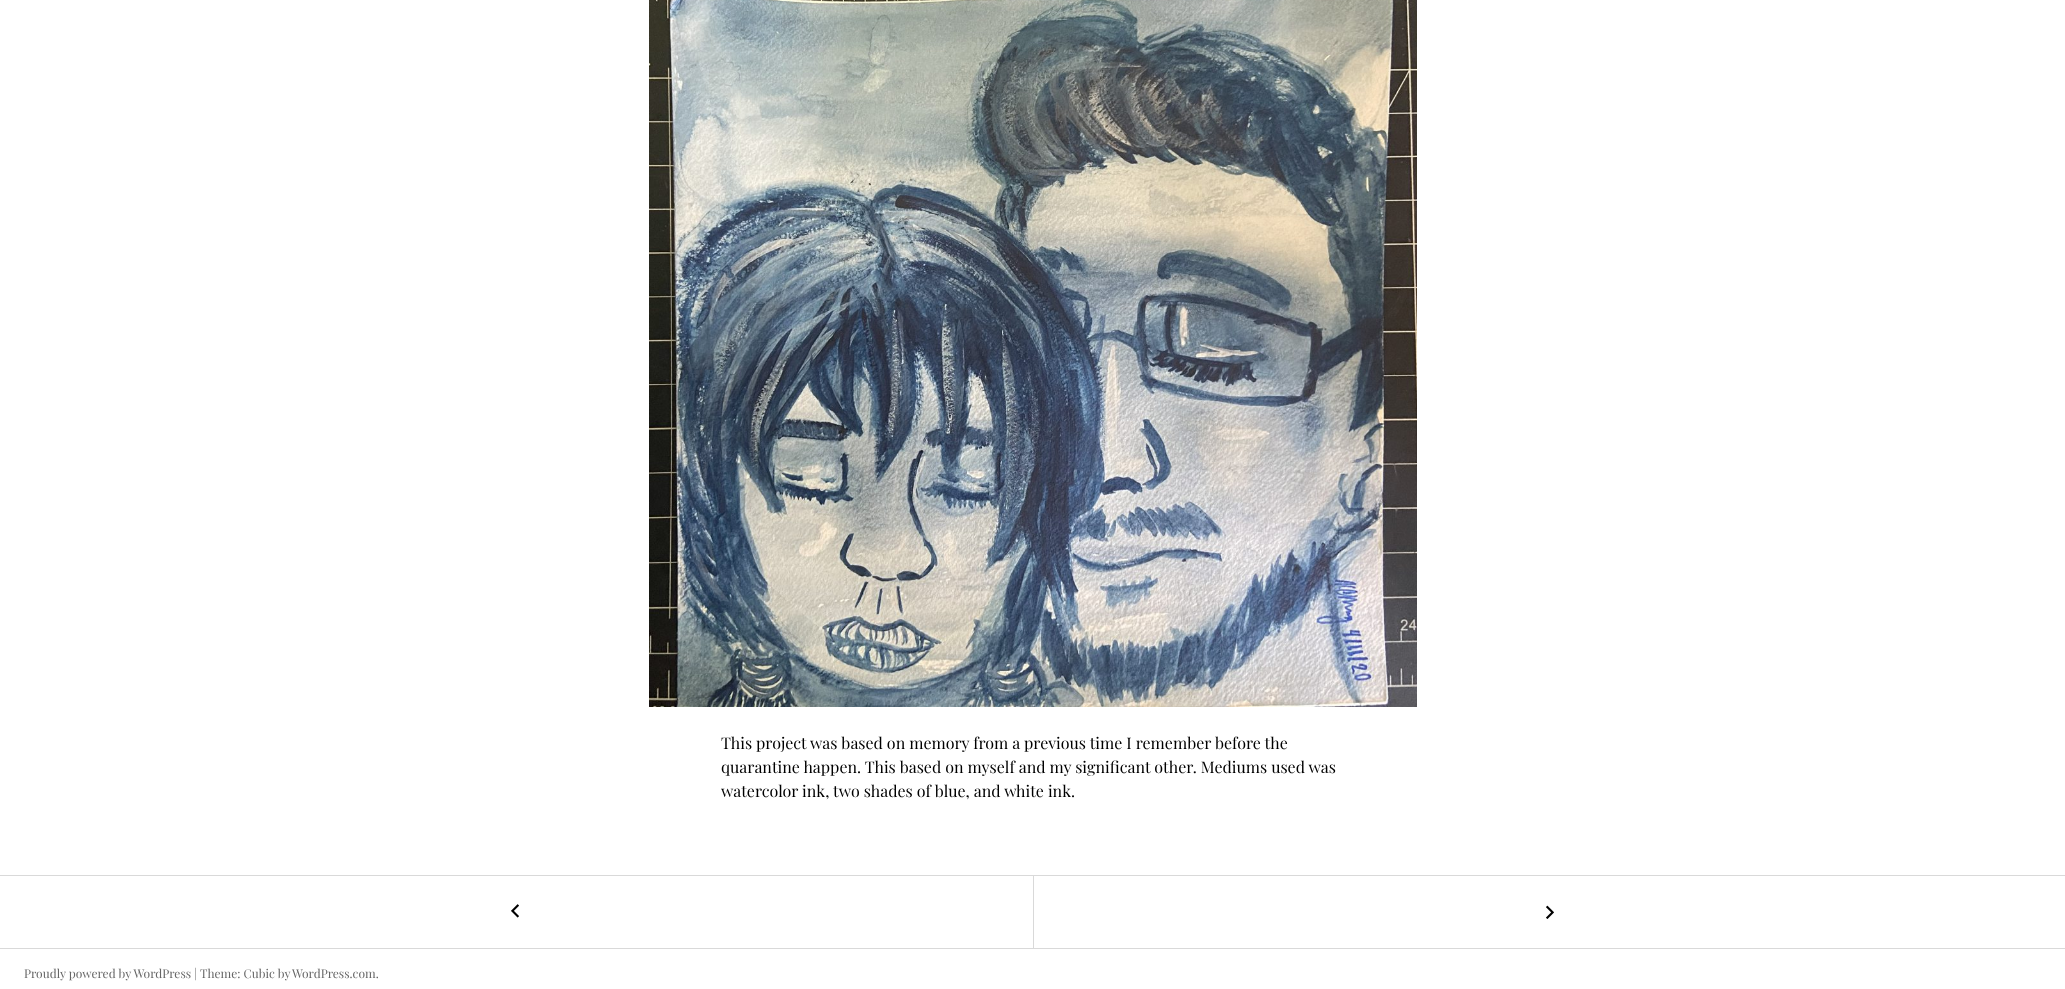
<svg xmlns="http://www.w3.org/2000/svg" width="2065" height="989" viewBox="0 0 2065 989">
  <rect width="100%" height="100%" fill="#ffffff"/>
  <image x="649" y="0" width="768" height="707" href="img1.png"/>
  <text x="721" y="749" font-family="Playfair Display" font-size="16" fill="#000000">This project was based on memory from a previous time I remember before the</text>
  <text x="721" y="773" font-family="Playfair Display" font-size="16" fill="#000000">quarantine happen. This based on myself and my significant other. Mediums used was</text>
  <text x="721" y="797" font-family="Playfair Display" font-size="16" fill="#000000">watercolor ink, two shades of blue, and white ink.</text>
  <rect x="0" y="875" width="2065" height="1" fill="#d9d9d9"/>
  <rect x="1033" y="876" width="1" height="72" fill="#d9d9d9"/>
  <image x="511" y="904" width="8" height="14" href="img2.png"/>
  <image x="1546" y="905" width="8" height="14" href="img3.png"/>
  <rect x="0" y="948" width="2065" height="1" fill="#d9d9d9"/>
  <text x="24" y="978" font-family="Playfair Display" font-size="12" fill="#666666">Proudly powered by WordPress |</text>
  <text x="200" y="978" font-family="Playfair Display" font-size="12" fill="#666666">Theme: Cubic by</text>
  <text x="292" y="978" font-family="Playfair Display" font-size="12" fill="#666666">WordPress.com.</text>
</svg>
